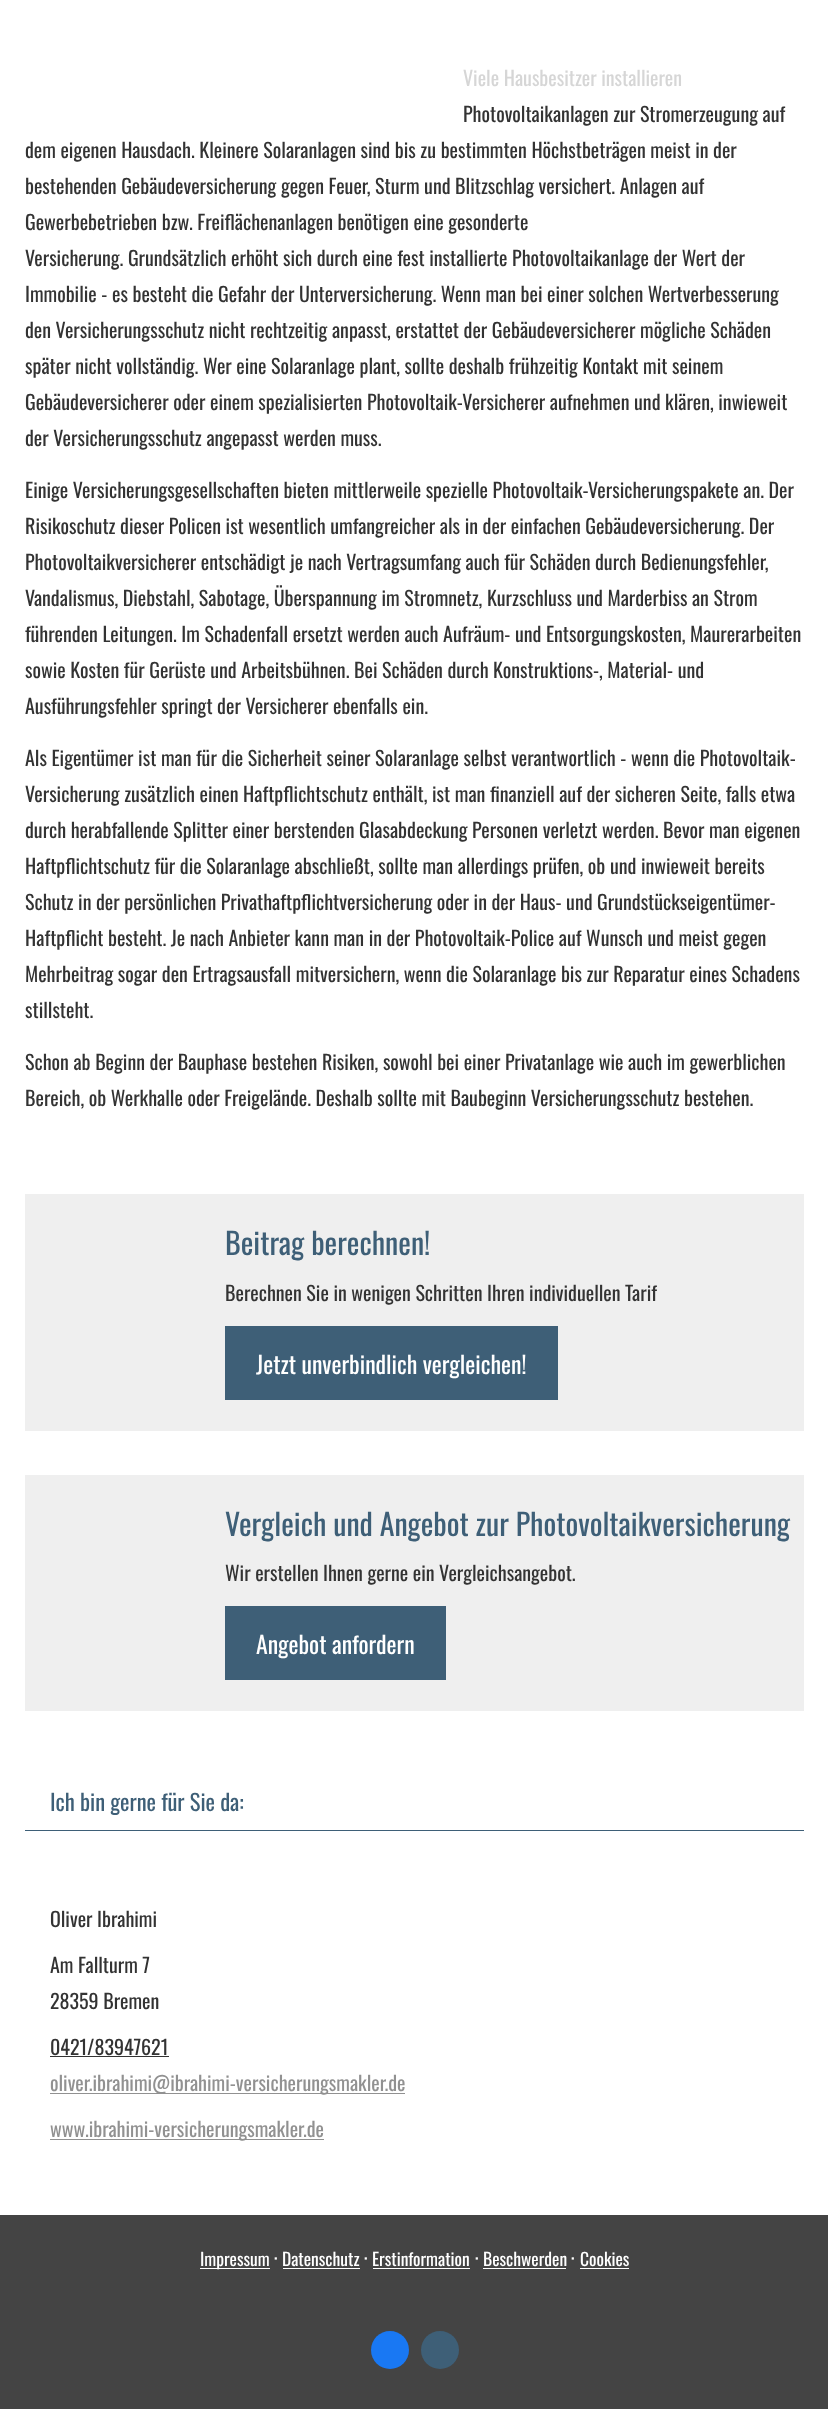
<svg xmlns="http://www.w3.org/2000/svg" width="828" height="2409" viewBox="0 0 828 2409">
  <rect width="100%" height="100%" fill="#ffffff"/>
  <text x="463" y="86" font-family="Oswald" font-size="20" fill="#d6d6d6">Viele Hausbesitzer installieren</text>
  <text x="463" y="122" font-family="Oswald" font-size="20" fill="#333333">Photovoltaikanlagen zur Stromerzeugung auf</text>
  <text x="25" y="158" font-family="Oswald" font-size="20" fill="#333333">dem eigenen Hausdach. Kleinere Solaranlagen sind bis zu bestimmten Höchstbeträgen meist in der</text>
  <text x="25" y="194" font-family="Oswald" font-size="20" fill="#333333">bestehenden Gebäudeversicherung gegen Feuer, Sturm und Blitzschlag versichert. Anlagen auf</text>
  <text x="25" y="230" font-family="Oswald" font-size="20" fill="#333333">Gewerbebetrieben bzw. Freiflächenanlagen benötigen eine gesonderte</text>
  <text x="25" y="266" font-family="Oswald" font-size="20" fill="#333333">Versicherung. Grundsätzlich erhöht sich durch eine fest installierte Photovoltaikanlage der Wert der</text>
  <text x="25" y="302" font-family="Oswald" font-size="20" fill="#333333">Immobilie - es besteht die Gefahr der Unterversicherung. Wenn man bei einer solchen Wertverbesserung</text>
  <text x="25" y="338" font-family="Oswald" font-size="20" fill="#333333">den Versicherungsschutz nicht rechtzeitig anpasst, erstattet der Gebäudeversicherer mögliche Schäden</text>
  <text x="25" y="374" font-family="Oswald" font-size="20" fill="#333333">später nicht vollständig. Wer eine Solaranlage plant, sollte deshalb frühzeitig Kontakt mit seinem</text>
  <text x="25" y="410" font-family="Oswald" font-size="20" fill="#333333">Gebäudeversicherer oder einem spezialisierten Photovoltaik-Versicherer aufnehmen und klären, inwieweit</text>
  <text x="25" y="446" font-family="Oswald" font-size="20" fill="#333333">der Versicherungsschutz angepasst werden muss.</text>
  <text x="25" y="498" font-family="Oswald" font-size="20" fill="#333333">Einige Versicherungsgesellschaften bieten mittlerweile spezielle Photovoltaik-Versicherungspakete an. Der</text>
  <text x="25" y="534" font-family="Oswald" font-size="20" fill="#333333">Risikoschutz dieser Policen ist wesentlich umfangreicher als in der einfachen Gebäudeversicherung. Der</text>
  <text x="25" y="570" font-family="Oswald" font-size="20" fill="#333333">Photovoltaikversicherer entschädigt je nach Vertragsumfang auch für Schäden durch Bedienungsfehler,</text>
  <text x="25" y="606" font-family="Oswald" font-size="20" fill="#333333">Vandalismus, Diebstahl, Sabotage, Überspannung im Stromnetz, Kurzschluss und Marderbiss an Strom</text>
  <text x="25" y="642" font-family="Oswald" font-size="20" fill="#333333">führenden Leitungen. Im Schadenfall ersetzt werden auch Aufräum- und Entsorgungskosten, Maurerarbeiten</text>
  <text x="25" y="678" font-family="Oswald" font-size="20" fill="#333333">sowie Kosten für Gerüste und Arbeitsbühnen. Bei Schäden durch Konstruktions-, Material- und</text>
  <text x="25" y="714" font-family="Oswald" font-size="20" fill="#333333">Ausführungsfehler springt der Versicherer ebenfalls ein.</text>
  <text x="25" y="766" font-family="Oswald" font-size="20" fill="#333333">Als Eigentümer ist man für die Sicherheit seiner Solaranlage selbst verantwortlich - wenn die Photovoltaik-</text>
  <text x="25" y="802" font-family="Oswald" font-size="20" fill="#333333">Versicherung zusätzlich einen Haftpflichtschutz enthält, ist man finanziell auf der sicheren Seite, falls etwa</text>
  <text x="25" y="838" font-family="Oswald" font-size="20" fill="#333333">durch herabfallende Splitter einer berstenden Glasabdeckung Personen verletzt werden. Bevor man eigenen</text>
  <text x="25" y="874" font-family="Oswald" font-size="20" fill="#333333">Haftpflichtschutz für die Solaranlage abschließt, sollte man allerdings prüfen, ob und inwieweit bereits</text>
  <text x="25" y="910" font-family="Oswald" font-size="20" fill="#333333">Schutz in der persönlichen Privathaftpflichtversicherung oder in der Haus- und Grundstückseigentümer-</text>
  <text x="25" y="946" font-family="Oswald" font-size="20" fill="#333333">Haftpflicht besteht. Je nach Anbieter kann man in der Photovoltaik-Police auf Wunsch und meist gegen</text>
  <text x="25" y="982" font-family="Oswald" font-size="20" fill="#333333">Mehrbeitrag sogar den Ertragsausfall mitversichern, wenn die Solaranlage bis zur Reparatur eines Schadens</text>
  <text x="25" y="1018" font-family="Oswald" font-size="20" fill="#333333">stillsteht.</text>
  <text x="25" y="1070" font-family="Oswald" font-size="20" fill="#333333">Schon ab Beginn der Bauphase bestehen Risiken, sowohl bei einer Privatanlage wie auch im gewerblichen</text>
  <text x="25" y="1106" font-family="Oswald" font-size="20" fill="#333333">Bereich, ob Werkhalle oder Freigelände. Deshalb sollte mit Baubeginn Versicherungsschutz bestehen.</text>
  <rect x="25" y="1194" width="779" height="237" fill="#efefef"/>
  <text x="225" y="1255" font-family="Oswald" font-size="30" fill="#3e5f77">Beitrag berechnen!</text>
  <text x="225" y="1301" font-family="Oswald" font-size="20" fill="#333333">Berechnen Sie in wenigen Schritten Ihren individuellen Tarif</text>
  <rect x="225" y="1326" width="333" height="74" fill="#3e5f77"/>
  <text x="256" y="1374" font-family="Oswald" font-size="23.75" fill="#ffffff">Jetzt unverbindlich vergleichen!</text>
  <rect x="25" y="1475" width="779" height="236" fill="#efefef"/>
  <text x="225" y="1536" font-family="Oswald" font-size="30" fill="#3e5f77">Vergleich und Angebot zur Photovoltaikversicherung</text>
  <text x="225" y="1581" font-family="Oswald" font-size="20" fill="#333333">Wir erstellen Ihnen gerne ein Vergleichsangebot.</text>
  <rect x="225" y="1606" width="221" height="74" fill="#3e5f77"/>
  <text x="256" y="1654" font-family="Oswald" font-size="23.75" fill="#ffffff">Angebot anfordern</text>
  <rect x="25" y="1830" width="779" height="1" fill="#3e5f77"/>
  <text x="50" y="1811" font-family="Oswald" font-size="22.5" fill="#3e5f77">Ich bin gerne für Sie da:</text>
  <text x="50" y="1927" font-family="Oswald" font-size="20" fill="#333333">Oliver Ibrahimi</text>
  <text x="50" y="1973" font-family="Oswald" font-size="20" fill="#333333">Am Fallturm 7</text>
  <text x="50" y="2009" font-family="Oswald" font-size="20" fill="#333333">28359 Bremen</text>
  <text x="50" y="2055" font-family="Oswald" font-size="20" fill="#333333">0421/83947621</text>
  <rect x="50" y="2056" width="119" height="1" fill="#333333"/>
  <rect x="50" y="2093" width="355" height="1" fill="#919191"/>
  <text x="50" y="2091" font-family="Oswald" font-size="20" fill="#919191">oliver.ibrahimi@ibrahimi-versicherungsmakler.de</text>
  <rect x="50" y="2139" width="274" height="1" fill="#919191"/>
  <text x="50" y="2137" font-family="Oswald" font-size="20" fill="#919191">www.ibrahimi-versicherungsmakler.de</text>
  <rect x="0" y="2215" width="828" height="194" fill="#444444"/>
  <rect x="200" y="2268" width="70" height="1" fill="#ffffff"/>
  <text x="200" y="2266" font-family="Oswald" font-size="17.5" fill="#ffffff">Impressum</text>
  <text x="274" y="2266" font-family="Oswald" font-size="20" fill="#ffffff">·</text>
  <text x="282" y="2266" font-family="Oswald" font-size="17.5" fill="#ffffff">Datenschutz</text>
  <rect x="283" y="2268" width="77" height="1" fill="#ffffff"/>
  <text x="364" y="2266" font-family="Oswald" font-size="20" fill="#ffffff">·</text>
  <text x="372" y="2266" font-family="Oswald" font-size="17.5" fill="#ffffff">Erstinformation</text>
  <rect x="373" y="2268" width="97" height="1" fill="#ffffff"/>
  <text x="475" y="2266" font-family="Oswald" font-size="20" fill="#ffffff">·</text>
  <text x="483" y="2266" font-family="Oswald" font-size="17.5" fill="#ffffff">Beschwerden</text>
  <rect x="483" y="2268" width="83" height="1" fill="#ffffff"/>
  <text x="571" y="2266" font-family="Oswald" font-size="20" fill="#ffffff">·</text>
  <text x="580" y="2266" font-family="Oswald" font-size="17.5" fill="#ffffff">Cookies</text>
  <rect x="580" y="2268" width="49" height="1" fill="#ffffff"/>
  <circle cx="390" cy="2350" r="19" fill="#1978f3"/>
  <circle cx="440" cy="2350" r="19" fill="#3e5f77"/>
</svg>
